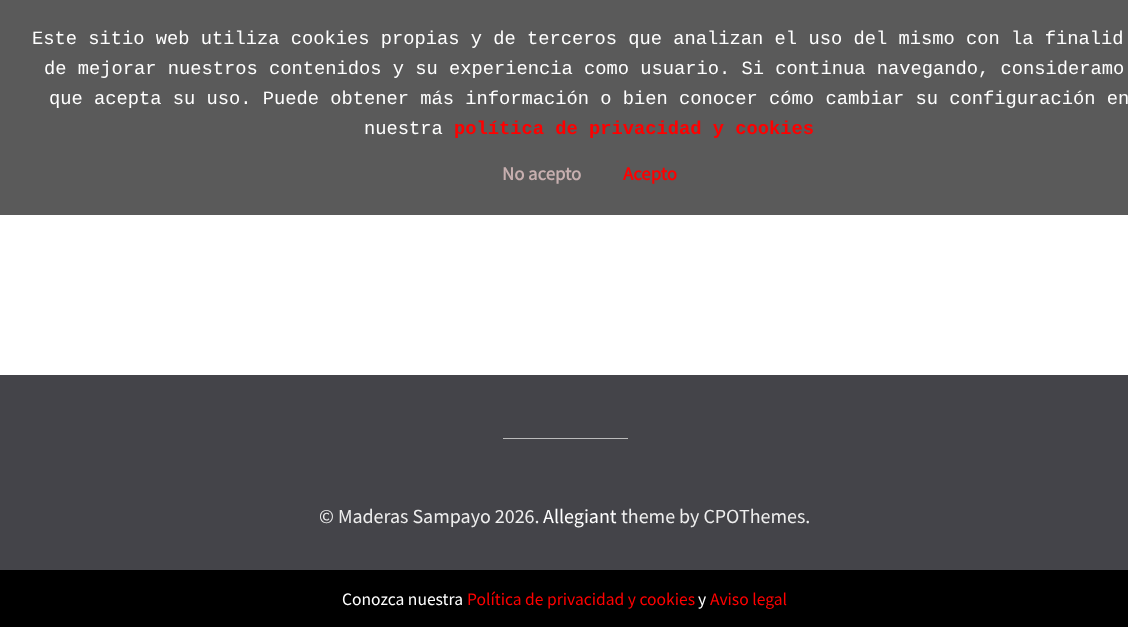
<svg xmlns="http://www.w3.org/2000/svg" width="1128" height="627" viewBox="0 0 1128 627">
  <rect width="100%" height="100%" fill="#ffffff"/>
  <rect x="0" y="0" width="1128" height="215" fill="#5a5a5a"/>
  <text x="32" y="44" font-family="Liberation Mono" font-size="18.75" fill="#ffffff">Este sitio web utiliza cookies propias y de terceros que analizan el uso del mismo con la finalid</text>
  <text x="44" y="74" font-family="Liberation Mono" font-size="18.75" fill="#ffffff">de mejorar nuestros contenidos y su experiencia como usuario. Si continua navegando, consideramo</text>
  <text x="49" y="104" font-family="Liberation Mono" font-size="18.75" fill="#ffffff">que acepta su uso. Puede obtener más información o bien conocer cómo cambiar su configuración en</text>
  <text x="364" y="134" font-family="Liberation Mono" font-size="18.75" fill="#ffffff">nuestra</text>
  <text x="454" y="134" font-family="Liberation Mono" font-size="18.75" font-weight="bold" fill="#ff0000">política de privacidad y cookies</text>
  <text x="502" y="180" font-family="Source Sans Pro" font-size="18.75" font-weight="bold" fill="#c7afaf">No acepto</text>
  <text x="623" y="180" font-family="Source Sans Pro" font-size="18.75" font-weight="bold" fill="#ff0000">Acepto</text>
  <rect x="0" y="375" width="1128" height="195" fill="#444449"/>
  <rect x="503" y="438" width="125" height="1" fill="#bbbbbb"/>
  <text x="319" y="523" font-family="Source Sans Pro" font-size="20" fill="#eeeeee">© Maderas Sampayo 2026.</text>
  <text x="543" y="523" font-family="Source Sans Pro" font-size="20" fill="#ffffff">Allegiant</text>
  <text x="621" y="523" font-family="Source Sans Pro" font-size="20" fill="#eeeeee">theme by CPOThemes.</text>
  <rect x="0" y="570" width="1128" height="57" fill="#000000"/>
  <text x="342" y="605" font-family="Source Sans Pro" font-size="17.5" fill="#ffffff">Conozca nuestra</text>
  <text x="467" y="605" font-family="Source Sans Pro" font-size="17.5" fill="#ff0000">Política de privacidad y cookies</text>
  <text x="698" y="605" font-family="Source Sans Pro" font-size="17.5" fill="#ffffff">y</text>
  <text x="710" y="605" font-family="Source Sans Pro" font-size="17.5" fill="#ff0000">Aviso legal</text>
</svg>
